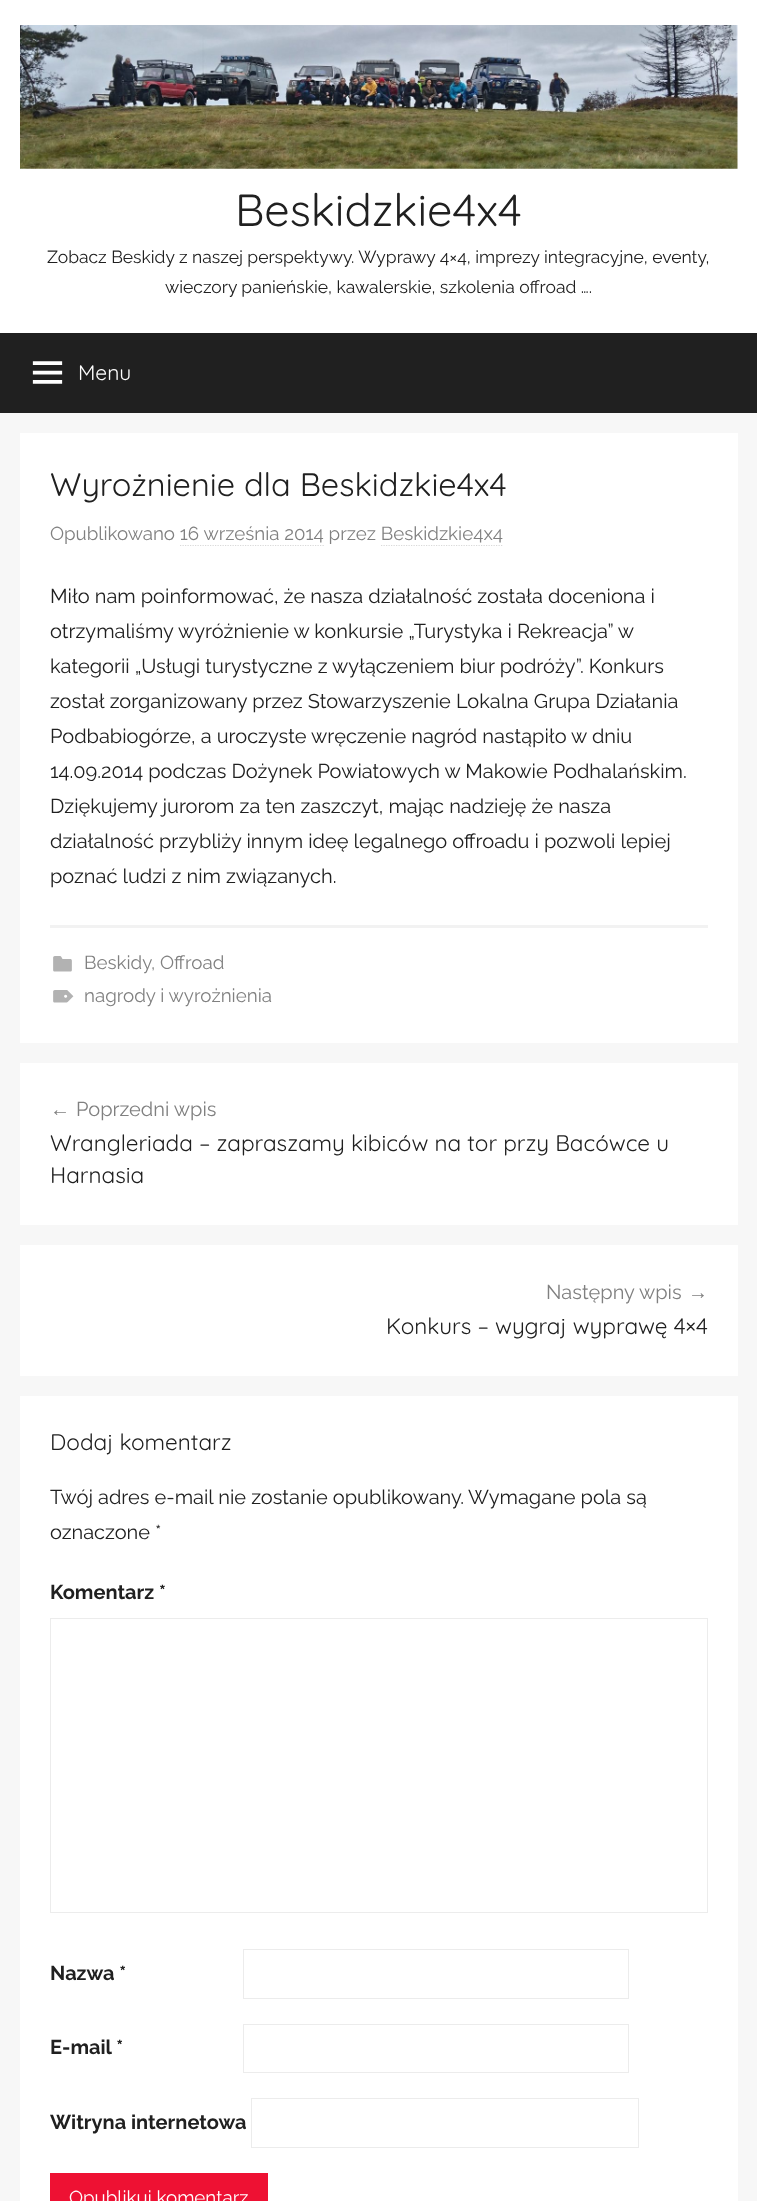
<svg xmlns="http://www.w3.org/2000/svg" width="757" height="2201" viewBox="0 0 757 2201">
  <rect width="100%" height="100%" fill="#f7f7f7"/>
  <rect x="0" y="0" width="757" height="333" fill="#ffffff"/>
  <image x="20" y="25" width="718" height="144" href="img1.png"/>
  <text x="235" y="226" font-family="Quicksand" font-size="45" font-weight="300" fill="#202020">Beskidzkie4x4</text>
  <text x="47" y="263" font-family="Raleway" font-size="17.5" font-weight="100" fill="#202020">Zobacz Beskidy z naszej perspektywy. Wyprawy 4×4, imprezy integracyjne, eventy,</text>
  <text x="165" y="293" font-family="Raleway" font-size="17.5" font-weight="100" fill="#202020">wieczory panieńskie, kawalerskie, szkolenia offroad ….</text>
  <rect x="0" y="333" width="757" height="80" fill="#202020"/>
  <image x="32" y="361" width="31" height="23" href="img2.png"/>
  <text x="78" y="380" font-family="Quicksand" font-size="21" font-weight="300" fill="#ffffff">Menu</text>
  <rect x="20" y="433" width="718" height="610" fill="#ffffff"/>
  <text x="50" y="496" font-family="Quicksand" font-size="32.5" font-weight="300" fill="#202020">Wyrożnienie dla Beskidzkie4x4</text>
  <text x="50" y="540" font-family="Raleway" font-size="18.75" font-weight="100" fill="#808080">Opublikowano 16 września 2014 przez Beskidzkie4x4</text>
  <path d="M180 545.5H324" fill="none" stroke="#d9d9d9" stroke-width="1.2" stroke-dasharray="1.25 1.25"/>
  <path d="M381 545.5H502.5" fill="none" stroke="#d9d9d9" stroke-width="1.2" stroke-dasharray="1.25 1.25"/>
  <text x="50" y="603" font-family="Raleway" font-size="20" font-weight="100" fill="#202020">Miło nam poinformować, że nasza działalność została doceniona i</text>
  <text x="50" y="638" font-family="Raleway" font-size="20" font-weight="100" fill="#202020">otrzymaliśmy wyróżnienie w konkursie „Turystyka i Rekreacja” w</text>
  <text x="50" y="673" font-family="Raleway" font-size="20" font-weight="100" fill="#202020">kategorii „Usługi turystyczne z wyłączeniem biur podróży”. Konkurs</text>
  <text x="50" y="708" font-family="Raleway" font-size="20" font-weight="100" fill="#202020">został zorganizowany przez Stowarzyszenie Lokalna Grupa Działania</text>
  <text x="50" y="743" font-family="Raleway" font-size="20" font-weight="100" fill="#202020">Podbabiogórze, a uroczyste wręczenie nagród nastąpiło w dniu</text>
  <text x="50" y="778" font-family="Raleway" font-size="20" font-weight="100" fill="#202020">14.09.2014 podczas Dożynek Powiatowych w Makowie Podhalańskim.</text>
  <text x="50" y="813" font-family="Raleway" font-size="20" font-weight="100" fill="#202020">Dziękujemy jurorom za ten zaszczyt, mając nadzieję że nasza</text>
  <text x="50" y="848" font-family="Raleway" font-size="20" font-weight="100" fill="#202020">działalność przybliży innym ideę legalnego offroadu i pozwoli lepiej</text>
  <text x="50" y="883" font-family="Raleway" font-size="20" font-weight="100" fill="#202020">poznać ludzi z nim związanych.</text>
  <rect x="50" y="925" width="658" height="3" fill="#f2f2f2"/>
  <image x="53" y="956" width="19" height="16" href="img3.png"/>
  <text x="84" y="969" font-family="Raleway" font-size="18.75" font-weight="100" fill="#808080">Beskidy</text>
  <text x="151" y="969" font-family="Raleway" font-size="18.75" font-weight="100" fill="#808080">, Offroad</text>
  <image x="53" y="990" width="21" height="13" href="img4.png"/>
  <text x="84" y="1002" font-family="Raleway" font-size="18.75" font-weight="100" fill="#808080">nagrody i wyrożnienia</text>
  <rect x="20" y="1063" width="718" height="162" fill="#ffffff"/>
  <text x="50" y="1116" font-family="Liberation Sans" font-size="20" fill="#808080">←</text>
  <text x="76" y="1116" font-family="Raleway" font-size="20" font-weight="100" fill="#808080">Poprzedni wpis</text>
  <text x="50" y="1151" font-family="Quicksand" font-size="22.5" font-weight="300" fill="#202020">Wrangleriada – zapraszamy kibiców na tor przy Bacówce u</text>
  <text x="50" y="1183" font-family="Quicksand" font-size="22.5" font-weight="300" fill="#202020">Harnasia</text>
  <rect x="20" y="1245" width="718" height="131" fill="#ffffff"/>
  <text x="546" y="1299" font-family="Raleway" font-size="20" font-weight="100" fill="#808080">Następny wpis</text>
  <text x="688" y="1299" font-family="Liberation Sans" font-size="20" fill="#808080">→</text>
  <text x="386" y="1334" font-family="Quicksand" font-size="22.5" font-weight="300" fill="#202020">Konkurs – wygraj wyprawę 4×4</text>
  <rect x="20" y="1396" width="718" height="805" fill="#ffffff"/>
  <text x="50" y="1450" font-family="Quicksand" font-size="22.5" font-weight="300" fill="#202020">Dodaj komentarz</text>
  <text x="50" y="1504" font-family="Raleway" font-size="20" font-weight="100" fill="#202020">Twój adres e-mail nie zostanie opublikowany.</text>
  <text x="468" y="1504" font-family="Raleway" font-size="20" font-weight="100" fill="#202020">Wymagane pola są</text>
  <text x="50" y="1539" font-family="Raleway" font-size="20" font-weight="100" fill="#202020">oznaczone *</text>
  <text x="50" y="1599" font-family="'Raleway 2'" font-size="20" font-weight="100" fill="#202020">Komentarz *</text>
  <rect x="50.5" y="1618.5" width="657" height="294" fill="none" stroke="#ececec"/>
  <text x="50" y="1980" font-family="'Raleway 2'" font-size="20" font-weight="100" fill="#202020">Nazwa *</text>
  <rect x="243.5" y="1949.5" width="385" height="49" fill="none" stroke="#ececec"/>
  <text x="50" y="2054" font-family="'Raleway 2'" font-size="20" font-weight="100" fill="#202020">E-mail *</text>
  <rect x="243.5" y="2024.5" width="385" height="48" fill="none" stroke="#ececec"/>
  <text x="50" y="2129" font-family="'Raleway 2'" font-size="20" font-weight="100" fill="#202020">Witryna internetowa</text>
  <rect x="251.5" y="2098.5" width="387" height="49" fill="none" stroke="#ececec"/>
  <rect x="50" y="2173" width="218" height="28" fill="#ee1133"/>
  <text x="69" y="2204" font-family="Raleway" font-size="18.75" font-weight="100" fill="#ffffff">Opublikuj komentarz</text>
</svg>
